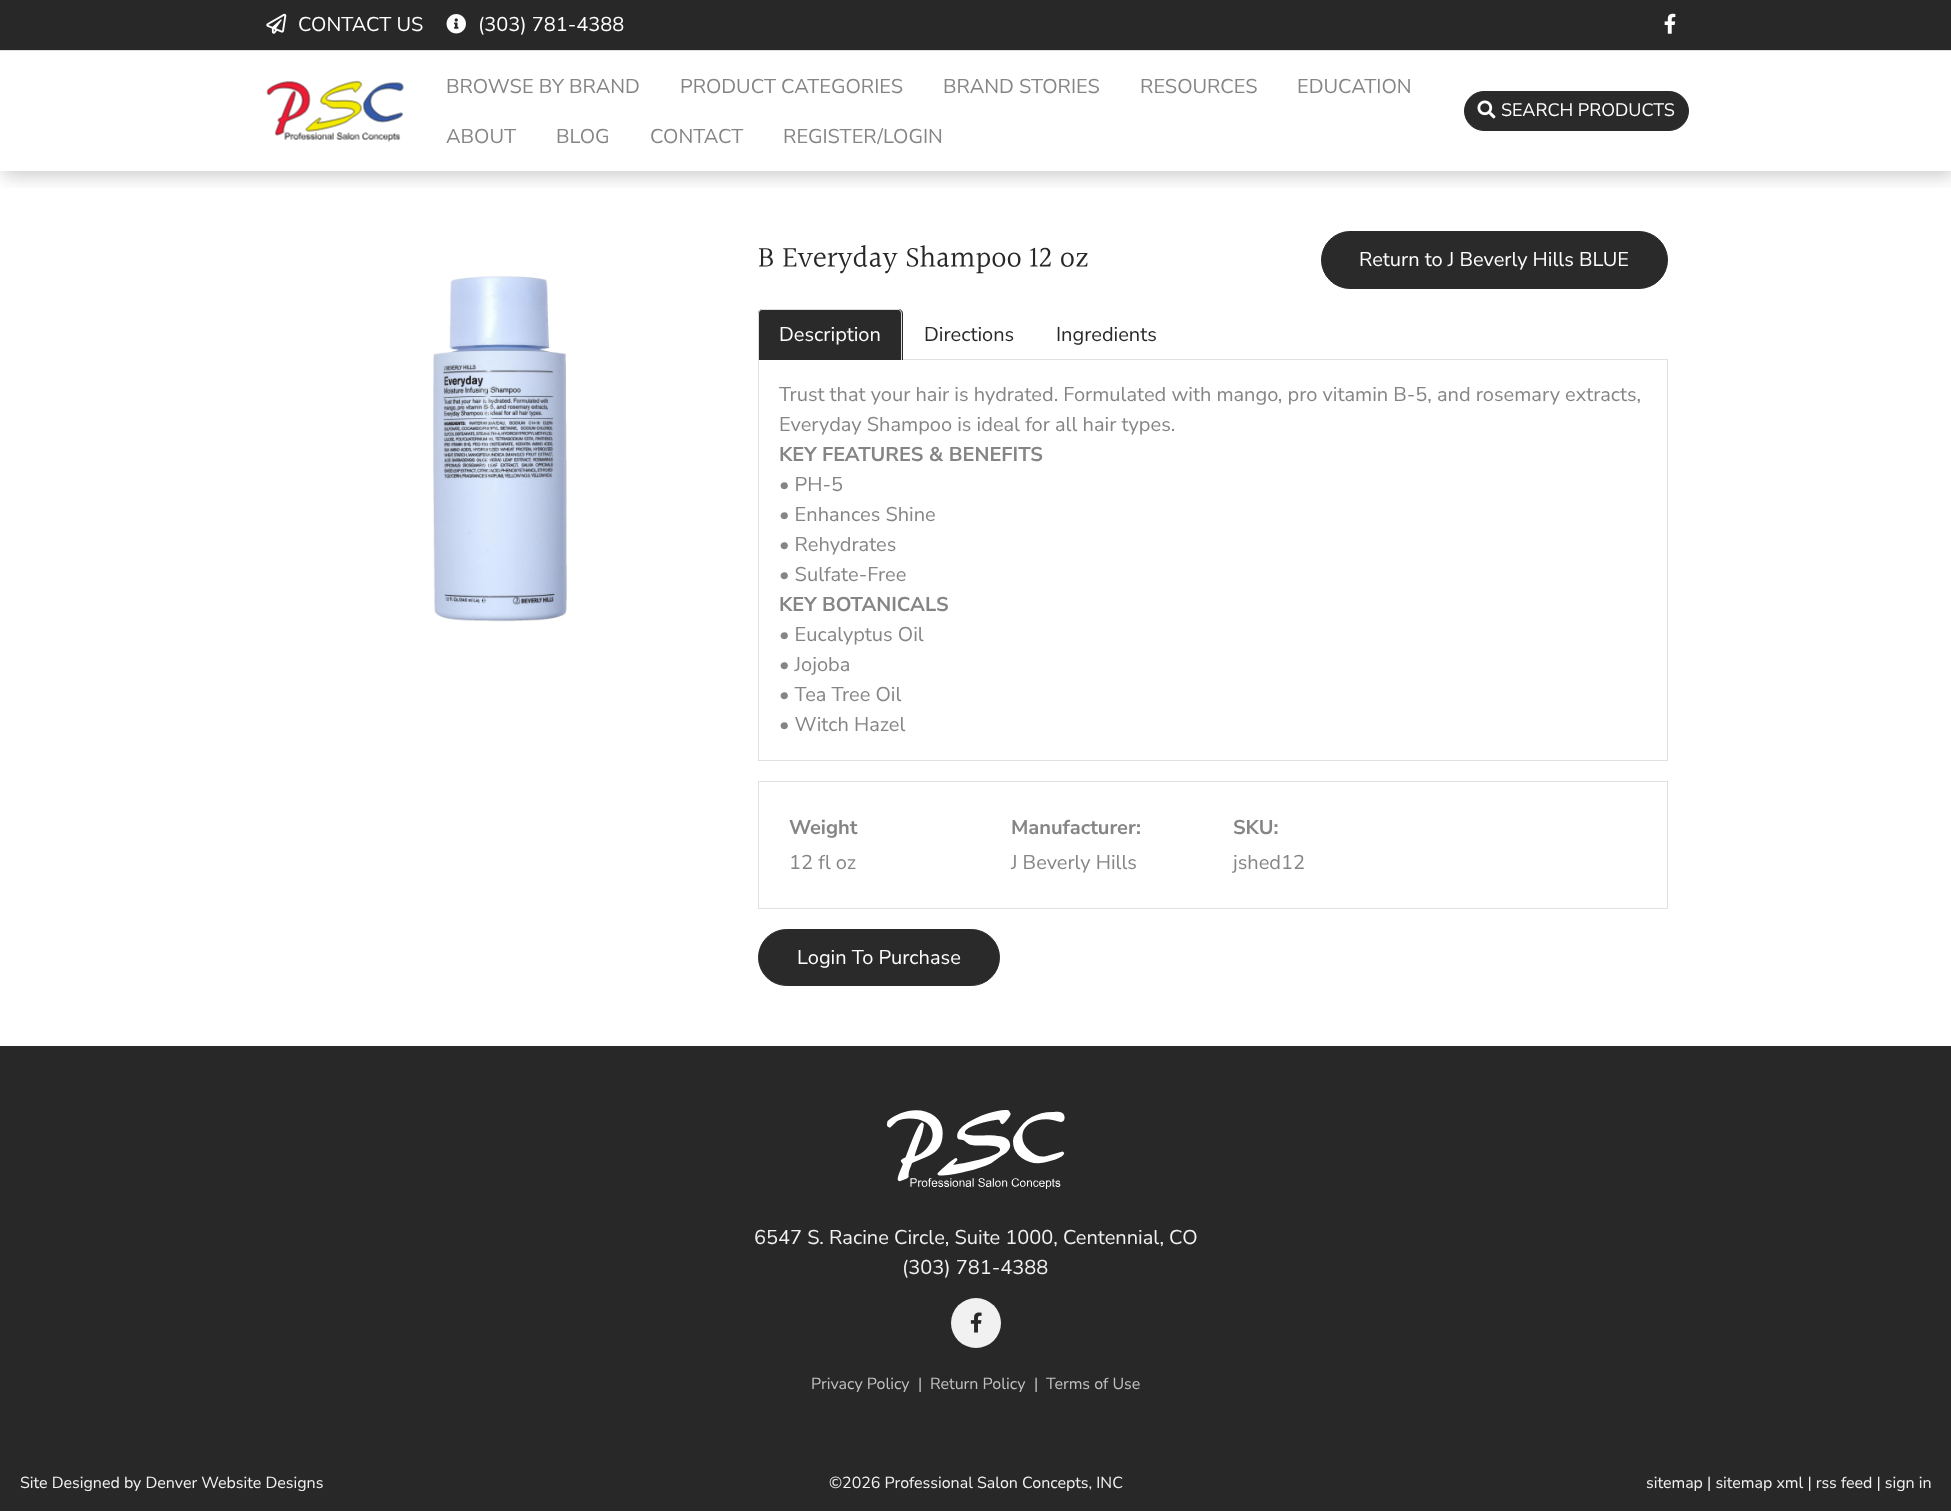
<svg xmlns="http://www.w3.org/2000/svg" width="1951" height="1512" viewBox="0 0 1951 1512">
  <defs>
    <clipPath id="clip1"><rect x="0" y="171" width="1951" height="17"/></clipPath>
    <filter id="blur1" x="-50%" y="-200%" width="200%" height="500%"><feGaussianBlur stdDeviation="9"/></filter>
  </defs>
  <rect width="100%" height="100%" fill="#ffffff"/>
  <g clip-path="url(#clip1)">
    <rect x="3" y="5" width="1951" height="171" fill="#000000" fill-opacity="0.2" filter="url(#blur1)"/>
  </g>
  <rect x="0" y="0" width="1951" height="50" fill="#282828"/>
  <rect x="0" y="50" width="1951" height="1" fill="#e0e0e0"/>
  <image x="266" y="13" width="21" height="21" href="img1.png"/>
  <text x="298" y="31" font-family="Nunito Sans" font-size="20" fill="#ffffff">CONTACT US</text>
  <image x="446" y="14" width="20" height="20" href="img2.png"/>
  <text x="478" y="31" font-family="Nunito Sans" font-size="20" fill="#ffffff">(303) 781-4388</text>
  <image x="1664" y="13" width="12" height="21" href="img3.png"/>
  <image x="266" y="80" width="138" height="62" href="img4.png"/>
  <text x="446" y="93" font-family="Nunito Sans" font-size="20" fill="#858585">BROWSE BY BRAND</text>
  <text x="680" y="93" font-family="Nunito Sans" font-size="20" fill="#858585">PRODUCT CATEGORIES</text>
  <text x="943" y="93" font-family="Nunito Sans" font-size="20" fill="#858585">BRAND STORIES</text>
  <text x="1140" y="93" font-family="Nunito Sans" font-size="20" fill="#858585">RESOURCES</text>
  <text x="1297" y="93" font-family="Nunito Sans" font-size="20" fill="#858585">EDUCATION</text>
  <text x="446" y="143" font-family="Nunito Sans" font-size="20" fill="#858585">ABOUT</text>
  <text x="556" y="143" font-family="Nunito Sans" font-size="20" fill="#858585">BLOG</text>
  <text x="650" y="143" font-family="Nunito Sans" font-size="20" fill="#858585">CONTACT</text>
  <text x="783" y="143" font-family="Nunito Sans" font-size="20" fill="#858585">REGISTER/LOGIN</text>
  <rect x="1464.5" y="91.5" width="224" height="39" rx="19.5" fill="#2a2a2a" stroke="#2a2a2a"/>
  <image x="1477" y="100" width="19" height="19" href="img5.png"/>
  <text x="1501" y="116" font-family="Nunito Sans" font-size="18" fill="#ffffff">SEARCH PRODUCTS</text>
  <image x="433" y="276" width="134" height="346" href="img6.png"/>
  <text x="758" y="268" font-family="Halant" font-size="30" fill="#282828">B Everyday Shampoo 12 oz</text>
  <rect x="1321.5" y="231.5" width="346" height="57" rx="28.5" fill="#2a2a2a" stroke="#2a2a2a"/>
  <text x="1359" y="266" font-family="Nunito Sans" font-size="20" fill="#ffffff">Return to J Beverly Hills BLUE</text>
  <rect x="758.5" y="359.5" width="909" height="401" fill="none" stroke="#e0e0e0"/>
  <path d="M763 309H898C901 309 903 311 903 314V360H758V314C758 311 760 309 763 309Z" fill="#2a2a2a"/>
  <path d="M762 309H898C900 309 902 311 902 314V360H758V314C758 311 760 309 762 309ZM762 310H898C900 310 901 312 901 314V360H759V314C759 312 760 310 762 310Z" fill="#dddddd" fill-rule="evenodd"/>
  <text x="779" y="341" font-family="Nunito Sans" font-size="20" fill="#ffffff">Description</text>
  <text x="924" y="341" font-family="Nunito Sans" font-size="20" fill="#282828">Directions</text>
  <text x="1056" y="341" font-family="Nunito Sans" font-size="20" fill="#282828">Ingredients</text>
  <text x="779" y="401" font-family="Nunito Sans" font-size="20" fill="#858585">Trust that your hair is hydrated. Formulated with mango, pro vitamin B-5, and rosemary extracts,</text>
  <text x="779" y="431" font-family="Nunito Sans" font-size="20" fill="#858585">Everyday Shampoo is ideal for all hair types.</text>
  <text x="779" y="461" font-family="Nunito Sans" font-size="20" font-weight="bold" fill="#858585">KEY FEATURES &amp; BENEFITS</text>
  <text x="779" y="491" font-family="Nunito Sans" font-size="20" fill="#858585">• PH-5</text>
  <text x="779" y="521" font-family="Nunito Sans" font-size="20" fill="#858585">• Enhances Shine</text>
  <text x="779" y="551" font-family="Nunito Sans" font-size="20" fill="#858585">• Rehydrates</text>
  <text x="779" y="581" font-family="Nunito Sans" font-size="20" fill="#858585">• Sulfate-Free</text>
  <text x="779" y="611" font-family="Nunito Sans" font-size="20" font-weight="bold" fill="#858585">KEY BOTANICALS</text>
  <text x="779" y="641" font-family="Nunito Sans" font-size="20" fill="#858585">• Eucalyptus Oil</text>
  <text x="779" y="671" font-family="Nunito Sans" font-size="20" fill="#858585">• Jojoba</text>
  <text x="779" y="701" font-family="Nunito Sans" font-size="20" fill="#858585">• Tea Tree Oil</text>
  <text x="779" y="731" font-family="Nunito Sans" font-size="20" fill="#858585">• Witch Hazel</text>
  <rect x="758.5" y="781.5" width="909" height="127" fill="none" stroke="#e0e0e0"/>
  <text x="789" y="834" font-family="Nunito Sans" font-size="20" font-weight="bold" fill="#858585">Weight</text>
  <text x="789" y="869" font-family="Nunito Sans" font-size="20" fill="#858585">12 fl oz</text>
  <text x="1011" y="834" font-family="Nunito Sans" font-size="20" font-weight="bold" fill="#858585">Manufacturer:</text>
  <text x="1011" y="869" font-family="Nunito Sans" font-size="20" fill="#858585">J Beverly Hills</text>
  <text x="1233" y="834" font-family="Nunito Sans" font-size="20" font-weight="bold" fill="#858585">SKU:</text>
  <text x="1233" y="869" font-family="Nunito Sans" font-size="20" fill="#858585">jshed12</text>
  <rect x="758.5" y="929.5" width="241" height="56" rx="28" fill="#2a2a2a" stroke="#2a2a2a"/>
  <text x="797" y="964" font-family="Nunito Sans" font-size="20" fill="#ffffff">Login To Purchase</text>
  <rect x="0" y="1046" width="1951" height="465" fill="#282828"/>
  <image x="887" y="1110" width="178" height="79" href="img7.png"/>
  <text x="754" y="1244" font-family="Nunito Sans" font-size="20" fill="#f1f1f1">6547 S. Racine Circle, Suite 1000, Centennial, CO</text>
  <text x="902" y="1274" font-family="Nunito Sans" font-size="20" fill="#f1f1f1">(303) 781-4388</text>
  <circle cx="976" cy="1323" r="25" fill="#f1f1f1"/>
  <image x="970" y="1312" width="12" height="21" href="img8.png"/>
  <text x="811" y="1389" font-family="Nunito Sans" font-size="16" fill="#c1c1c1">Privacy Policy</text>
  <text x="918" y="1389" font-family="Nunito Sans" font-size="16" fill="#c1c1c1">|</text>
  <text x="930" y="1389" font-family="Nunito Sans" font-size="16" fill="#c1c1c1">Return Policy</text>
  <text x="1034" y="1389" font-family="Nunito Sans" font-size="16" fill="#c1c1c1">|</text>
  <text x="1046" y="1389" font-family="Nunito Sans" font-size="16" fill="#c1c1c1">Terms of Use</text>
  <text x="20" y="1488" font-family="Nunito Sans" font-size="16" fill="#f1f1f1">Site Designed by Denver Website Designs</text>
  <text x="829" y="1488" font-family="Nunito Sans" font-size="16" fill="#f1f1f1">©2026 Professional Salon Concepts, INC</text>
  <text x="1646" y="1488" font-family="Nunito Sans" font-size="16" fill="#f1f1f1">sitemap | sitemap xml | rss feed | sign in</text>
</svg>
